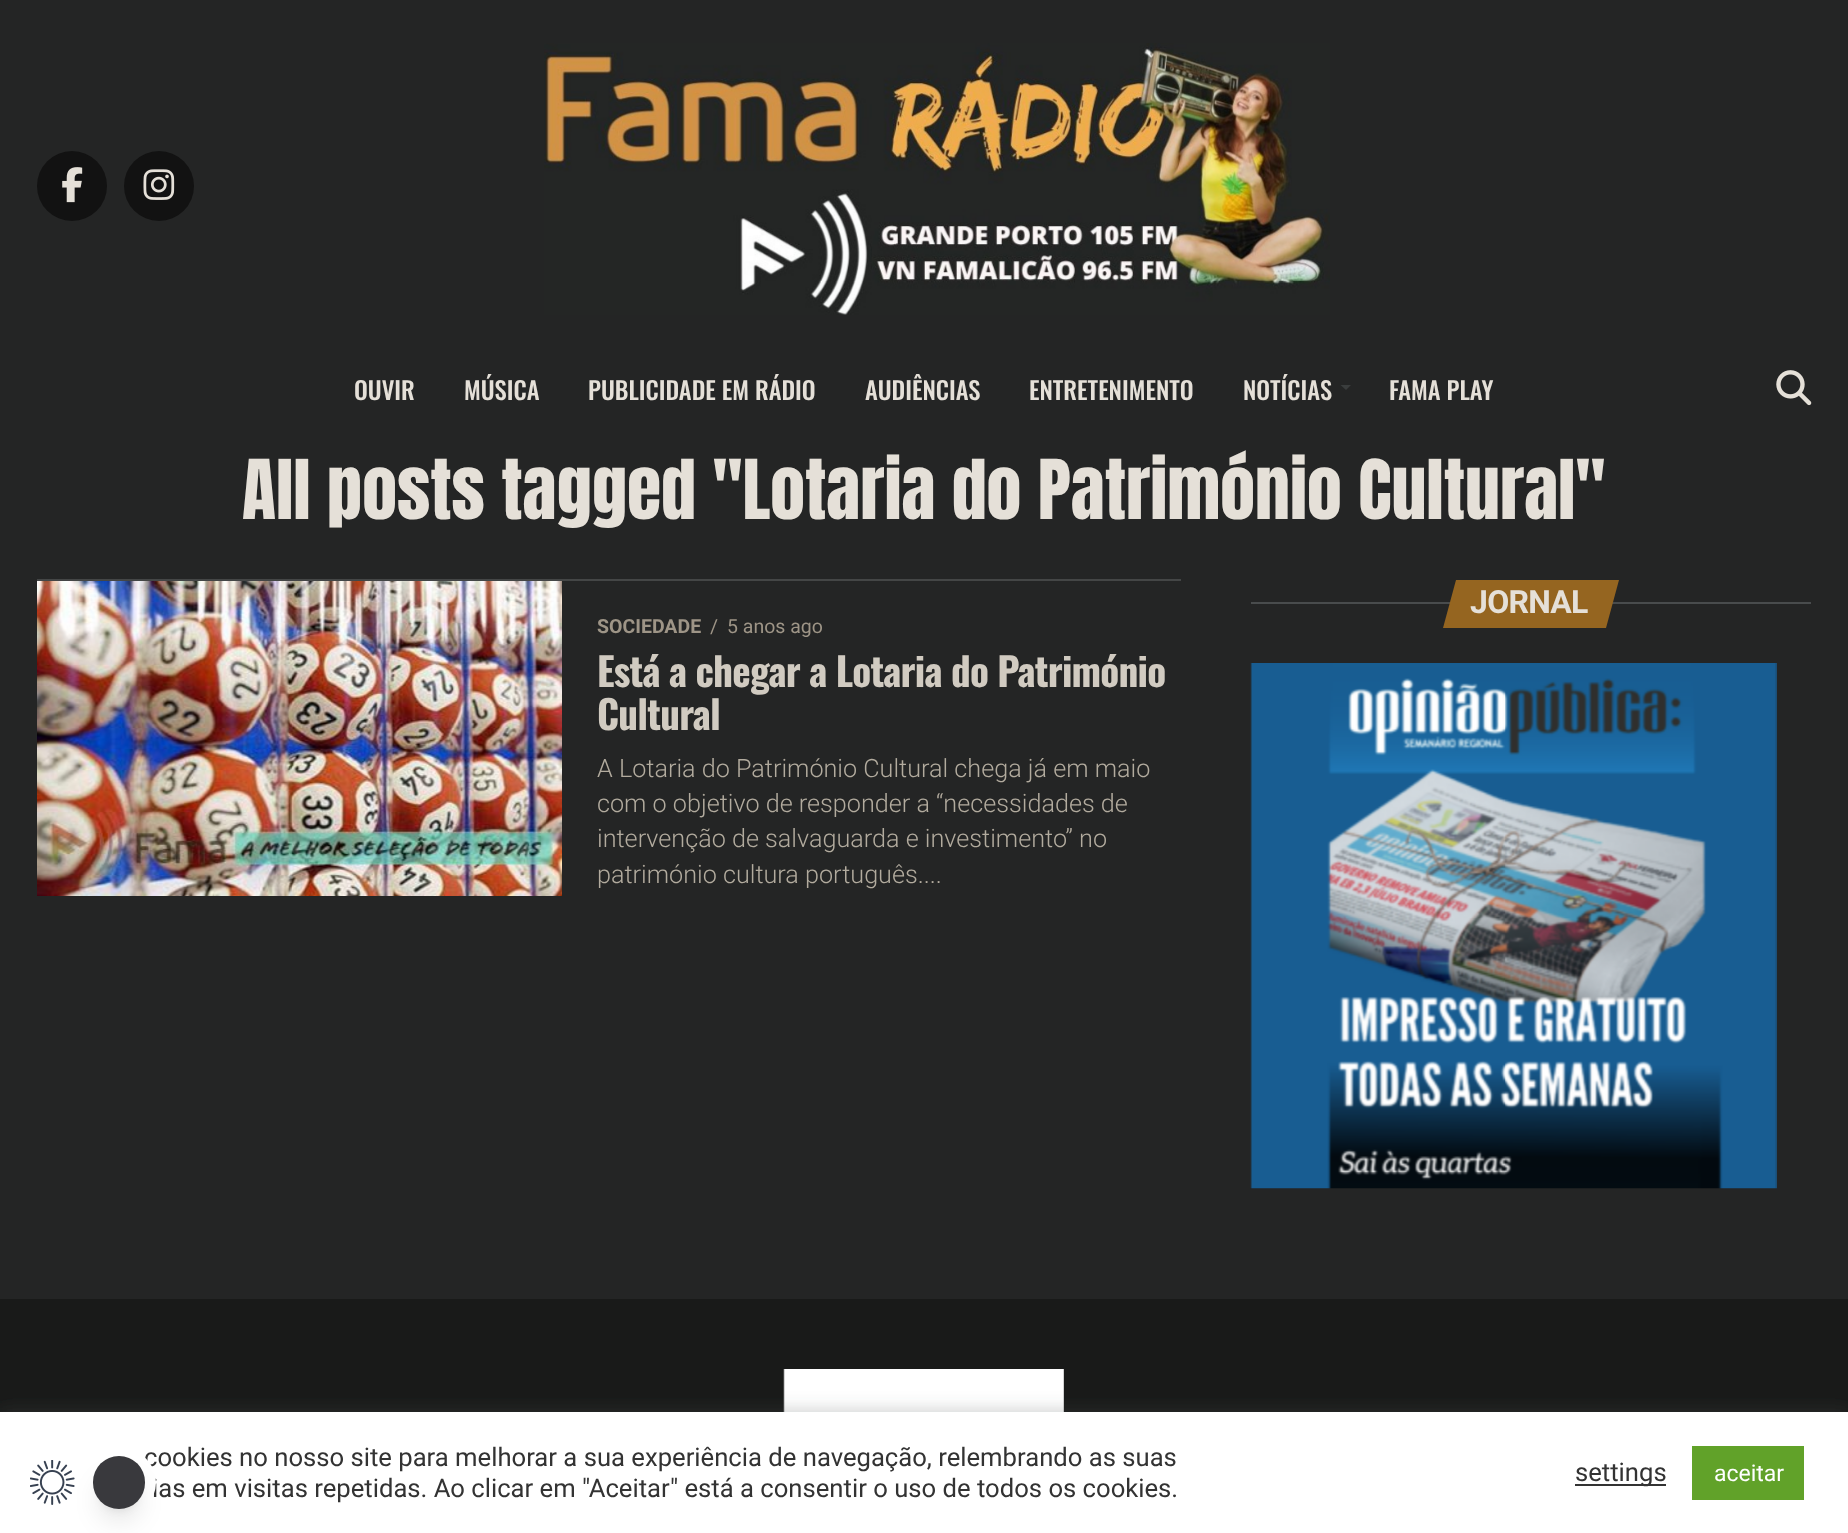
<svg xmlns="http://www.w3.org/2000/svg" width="1848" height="1533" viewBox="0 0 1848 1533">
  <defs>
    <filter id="blur1" x="-50%" y="-200%" width="200%" height="500%"><feGaussianBlur stdDeviation="9"/></filter>
    <filter id="blur2" x="-50%" y="-200%" width="200%" height="500%"><feGaussianBlur stdDeviation="5"/></filter>
    <filter id="blur3" x="-50%" y="-200%" width="200%" height="500%"><feGaussianBlur stdDeviation="13"/></filter>
  </defs>
  <rect width="100%" height="100%" fill="#242525"/>
  <circle cx="72" cy="186" r="35" fill="#121212"/>
  <image x="62" y="167" width="21" height="36" href="img1.png"/>
  <circle cx="159" cy="186" r="35" fill="#121212"/>
  <image x="143" y="169" width="32" height="31" href="img2.png"/>
  <image x="544" y="43" width="786" height="272" href="img3.png"/>
  <text x="354" y="400" font-family="Oswald" font-size="24.5" font-weight="500" fill="#e5e0d8">OUVIR</text>
  <text x="464" y="400" font-family="Oswald" font-size="24.5" font-weight="500" fill="#e5e0d8">MÚSICA</text>
  <text x="588" y="400" font-family="Oswald" font-size="24.5" font-weight="500" fill="#e5e0d8">PUBLICIDADE EM RÁDIO</text>
  <text x="865" y="400" font-family="Oswald" font-size="24.5" font-weight="500" fill="#e5e0d8">AUDIÊNCIAS</text>
  <text x="1029" y="400" font-family="Oswald" font-size="24.5" font-weight="500" fill="#e5e0d8">ENTRETENIMENTO</text>
  <text x="1243" y="400" font-family="Oswald" font-size="24.5" font-weight="500" fill="#e5e0d8">NOTÍCIAS</text>
  <path d="M1340.5 385H1351L1346 390Z" fill="#3a3d3d"/>
  <text x="1389" y="400" font-family="Oswald" font-size="24.5" font-weight="500" fill="#e5e0d8">FAMA PLAY</text>
  <image x="1776" y="370" width="36" height="36" href="img4.png"/>
  <text x="242" y="519" font-family="Anton" font-size="70" fill="#e5e0d8">All posts tagged "Lotaria do Património Cultural"</text>
  <rect x="1251" y="602" width="560" height="2" fill="#494c4d"/>
  <path d="M1456 580H1619L1606 628H1443Z" fill="#956520"/>
  <text x="1470" y="613" font-family="Roboto" font-size="32" font-weight="bold" letter-spacing="-0.75" fill="#e5e0d8">JORNAL</text>
  <image x="1250" y="663" width="527" height="526" href="img5.png"/>
  <rect x="37" y="579" width="1144" height="2" fill="#444646"/>
  <image x="37" y="581" width="525" height="315" href="img6.png"/>
  <text x="597" y="633" font-family="Roboto" font-size="19.5" font-weight="bold" fill="#9e9587">SOCIEDADE</text>
  <text x="710" y="633" font-family="Roboto" font-size="19.5" fill="#9e9587">/</text>
  <text x="727" y="633" font-family="Roboto" font-size="19.5" fill="#9e9587">5 anos ago</text>
  <text x="597" y="687" font-family="Oswald" font-size="39.25" font-weight="bold" letter-spacing="-0.8" fill="#d1cbc1">Está a chegar a Lotaria do Património</text>
  <text x="597" y="730" font-family="Oswald" font-size="39.25" font-weight="bold" letter-spacing="-0.8" fill="#d1cbc1">Cultural</text>
  <text x="597" y="777" font-family="Roboto" font-size="25.2" font-weight="300" fill="#b2ab9e">A Lotaria do Património Cultural chega já em maio</text>
  <text x="597" y="812" font-family="Roboto" font-size="25.2" font-weight="300" fill="#b2ab9e">com o objetivo de responder a “necessidades de</text>
  <text x="597" y="847" font-family="Roboto" font-size="25.2" font-weight="300" fill="#b2ab9e">intervenção de salvaguarda e investimento” no</text>
  <text x="597" y="883" font-family="Roboto" font-size="25.2" font-weight="300" fill="#b2ab9e">património cultura português....</text>
  <rect x="0" y="1299" width="1848" height="113" fill="#191a19"/>
  <image x="783" y="1369" width="281" height="43" href="img7.png"/>
  <rect x="0" y="1411" width="1848" height="120" fill="#505454" fill-opacity="0.3" filter="url(#blur1)"/>
  <rect x="0" y="1412" width="1848" height="121" fill="#ffffff"/>
  <text x="144" y="1466" font-family="Roboto" font-size="25.65" fill="#333333">cookies no nosso site para melhorar a sua experiência de navegação, relembrando as suas</text>
  <text x="152" y="1497" font-family="Roboto" font-size="25.65" fill="#333333">ias em visitas repetidas. Ao clicar em "Aceitar" está a consentir o uso de todos os cookies.</text>
  <rect x="18" y="1449" width="138" height="67" rx="33.5" fill="#ffffff"/>
  <image x="30" y="1460" width="45" height="45" href="img8.png"/>
  <rect x="100" y="1470" width="38" height="39" rx="19" fill="#000000" fill-opacity="0.1" filter="url(#blur2)"/>
  <rect x="98" y="1479" width="42" height="42" rx="21" fill="#000000" fill-opacity="0.1" filter="url(#blur3)"/>
  <rect x="93" y="1456" width="52" height="53" rx="26" fill="#39393d"/>
  <rect x="1575" y="1484" width="91" height="2" fill="#333333"/>
  <text x="1575" y="1481" font-family="Roboto" font-size="25.65" fill="#333333">settings</text>
  <rect x="1692" y="1446" width="112" height="54" fill="#61a229"/>
  <text x="1714" y="1481" font-family="Roboto" font-size="23" fill="#ffffff">aceitar</text>
</svg>
